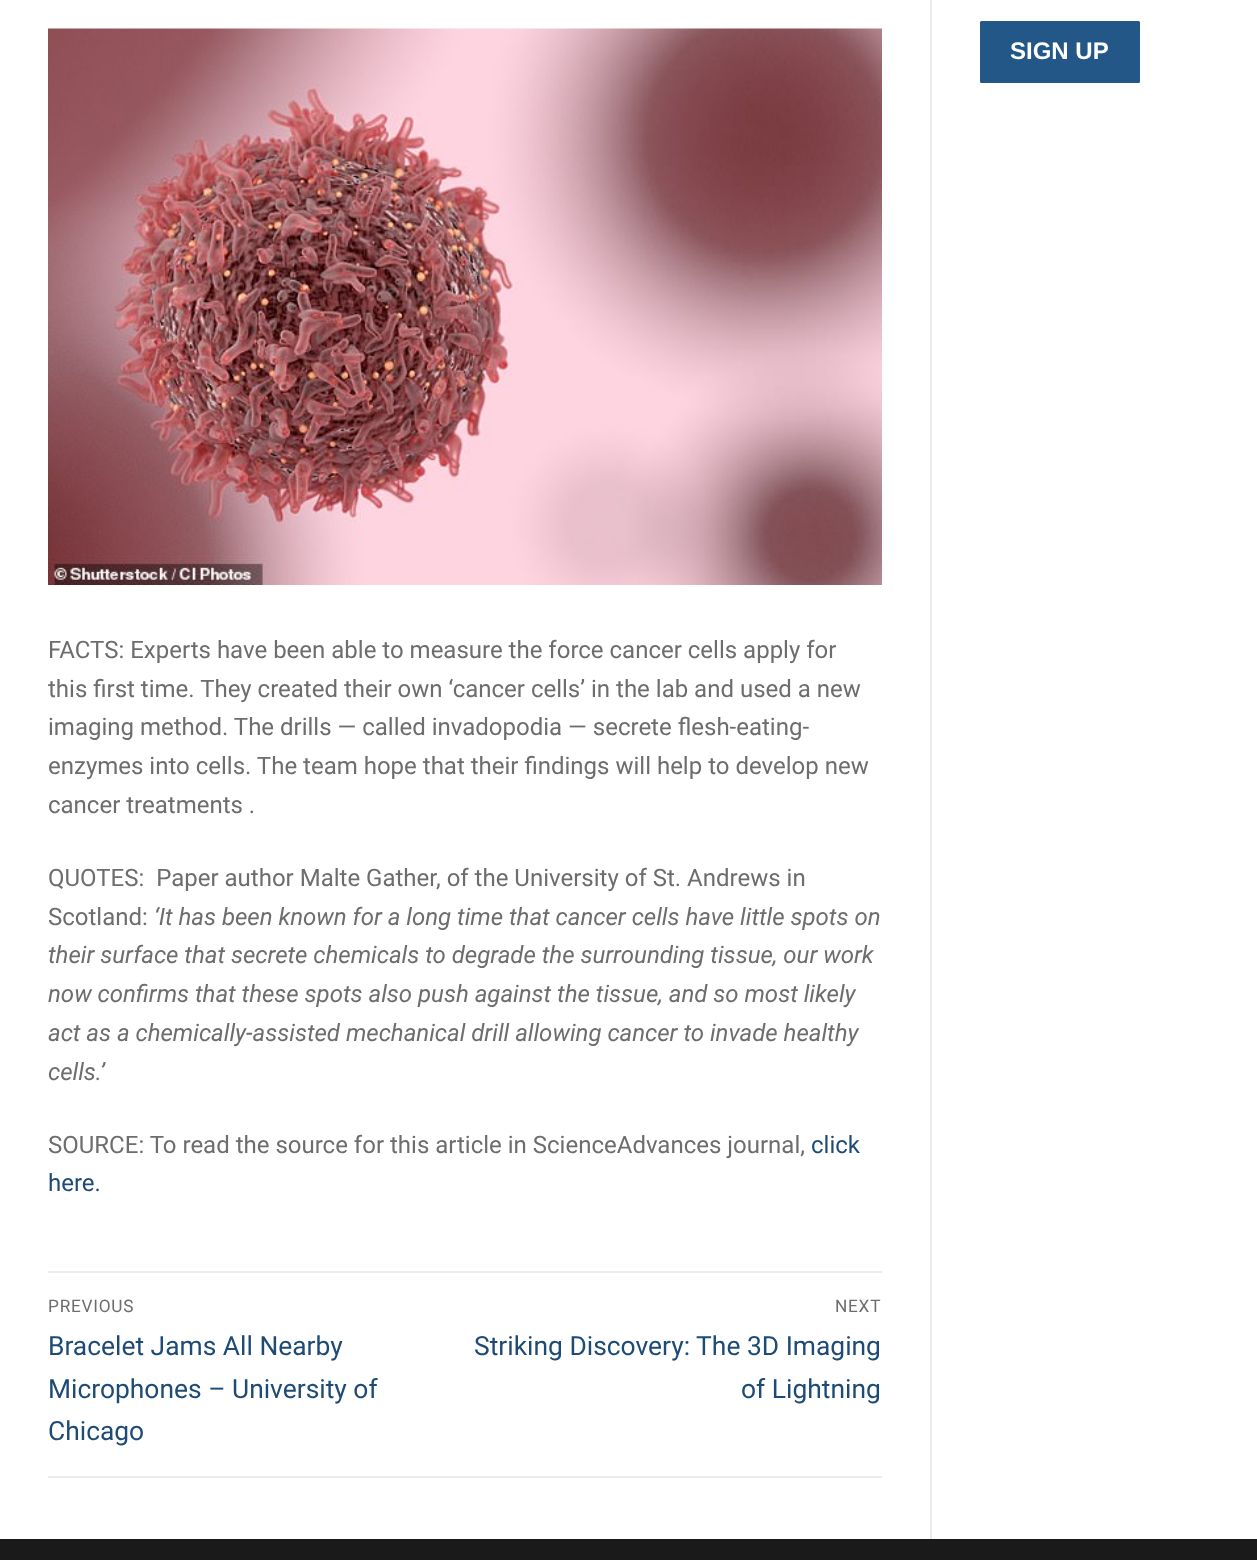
<svg xmlns="http://www.w3.org/2000/svg" width="1257" height="1560" viewBox="0 0 1257 1560">
  <rect width="100%" height="100%" fill="#ffffff"/>
  <rect x="980" y="21" width="160" height="62" rx="1.5" fill="#235787"/>
  <text x="1010" y="59" font-family="Liberation Sans" font-size="24" font-weight="bold" fill="#ffffff">SIGN UP</text>
  <rect x="930" y="0" width="2" height="1539" fill="#eaecee"/>
  <image x="48" y="28" width="834" height="557" href="img1.png"/>
  <text x="48" y="658" font-family="Roboto" font-size="24" fill="#6d6d6d">FACTS: Experts have been able to measure the force cancer cells apply for</text>
  <text x="48" y="697" font-family="Roboto" font-size="24" fill="#6d6d6d">this first time. They created their own ‘cancer cells’ in the lab and used a new</text>
  <text x="48" y="735" font-family="Roboto" font-size="24" fill="#6d6d6d">imaging method. The drills — called invadopodia — secrete flesh-eating-</text>
  <text x="48" y="774" font-family="Roboto" font-size="24" fill="#6d6d6d">enzymes into cells. The team hope that their findings will help to develop new</text>
  <text x="48" y="813" font-family="Roboto" font-size="24" fill="#6d6d6d">cancer treatments .</text>
  <text x="48" y="886" font-family="Roboto" font-size="24" fill="#6d6d6d" xml:space="preserve">QUOTES:  Paper author Malte Gather, of the University of St. Andrews in</text>
  <text x="48" y="925" font-family="Roboto" font-size="24" fill="#6d6d6d">Scotland:</text>
  <text x="154" y="925" font-family="Roboto" font-size="24" font-style="italic" fill="#6d6d6d">‘It has been known for a long time that cancer cells have little spots on</text>
  <text x="48" y="963" font-family="Roboto" font-size="24" font-style="italic" fill="#6d6d6d">their surface that secrete chemicals to degrade the surrounding tissue, our work</text>
  <text x="48" y="1002" font-family="Roboto" font-size="24" font-style="italic" fill="#6d6d6d">now confirms that these spots also push against the tissue, and so most likely</text>
  <text x="48" y="1041" font-family="Roboto" font-size="24" font-style="italic" fill="#6d6d6d">act as a chemically-assisted mechanical drill allowing cancer to invade healthy</text>
  <text x="48" y="1080" font-family="Roboto" font-size="24" font-style="italic" fill="#6d6d6d">cells.’</text>
  <text x="48" y="1153" font-family="Roboto" font-size="24" fill="#6d6d6d">SOURCE: To read the source for this article in ScienceAdvances journal,</text>
  <text x="811" y="1153" font-family="Roboto" font-size="24" fill="#1e4b75">click</text>
  <text x="48" y="1191" font-family="Roboto" font-size="24" fill="#1e4b75">here.</text>
  <rect x="48" y="1271" width="834" height="2" fill="#eaecee"/>
  <rect x="48" y="1476" width="834" height="2" fill="#eaecee"/>
  <text x="48" y="1312" font-family="Roboto" font-size="17.25" letter-spacing="0.75" fill="#6d6d6d">PREVIOUS</text>
  <text x="48" y="1355" font-family="Roboto" font-size="26.4" fill="#1e4b75">Bracelet Jams All Nearby</text>
  <text x="48" y="1398" font-family="Roboto" font-size="26.4" fill="#1e4b75">Microphones – University of</text>
  <text x="48" y="1440" font-family="Roboto" font-size="26.4" fill="#1e4b75">Chicago</text>
  <text x="835" y="1312" font-family="Roboto" font-size="17.25" letter-spacing="0.75" fill="#6d6d6d">NEXT</text>
  <text x="474" y="1355" font-family="Roboto" font-size="26.4" fill="#1e4b75">Striking Discovery: The 3D Imaging</text>
  <text x="741" y="1398" font-family="Roboto" font-size="26.4" fill="#1e4b75">of Lightning</text>
  <rect x="0" y="1539" width="1257" height="21" fill="#1a1a1a"/>
</svg>
